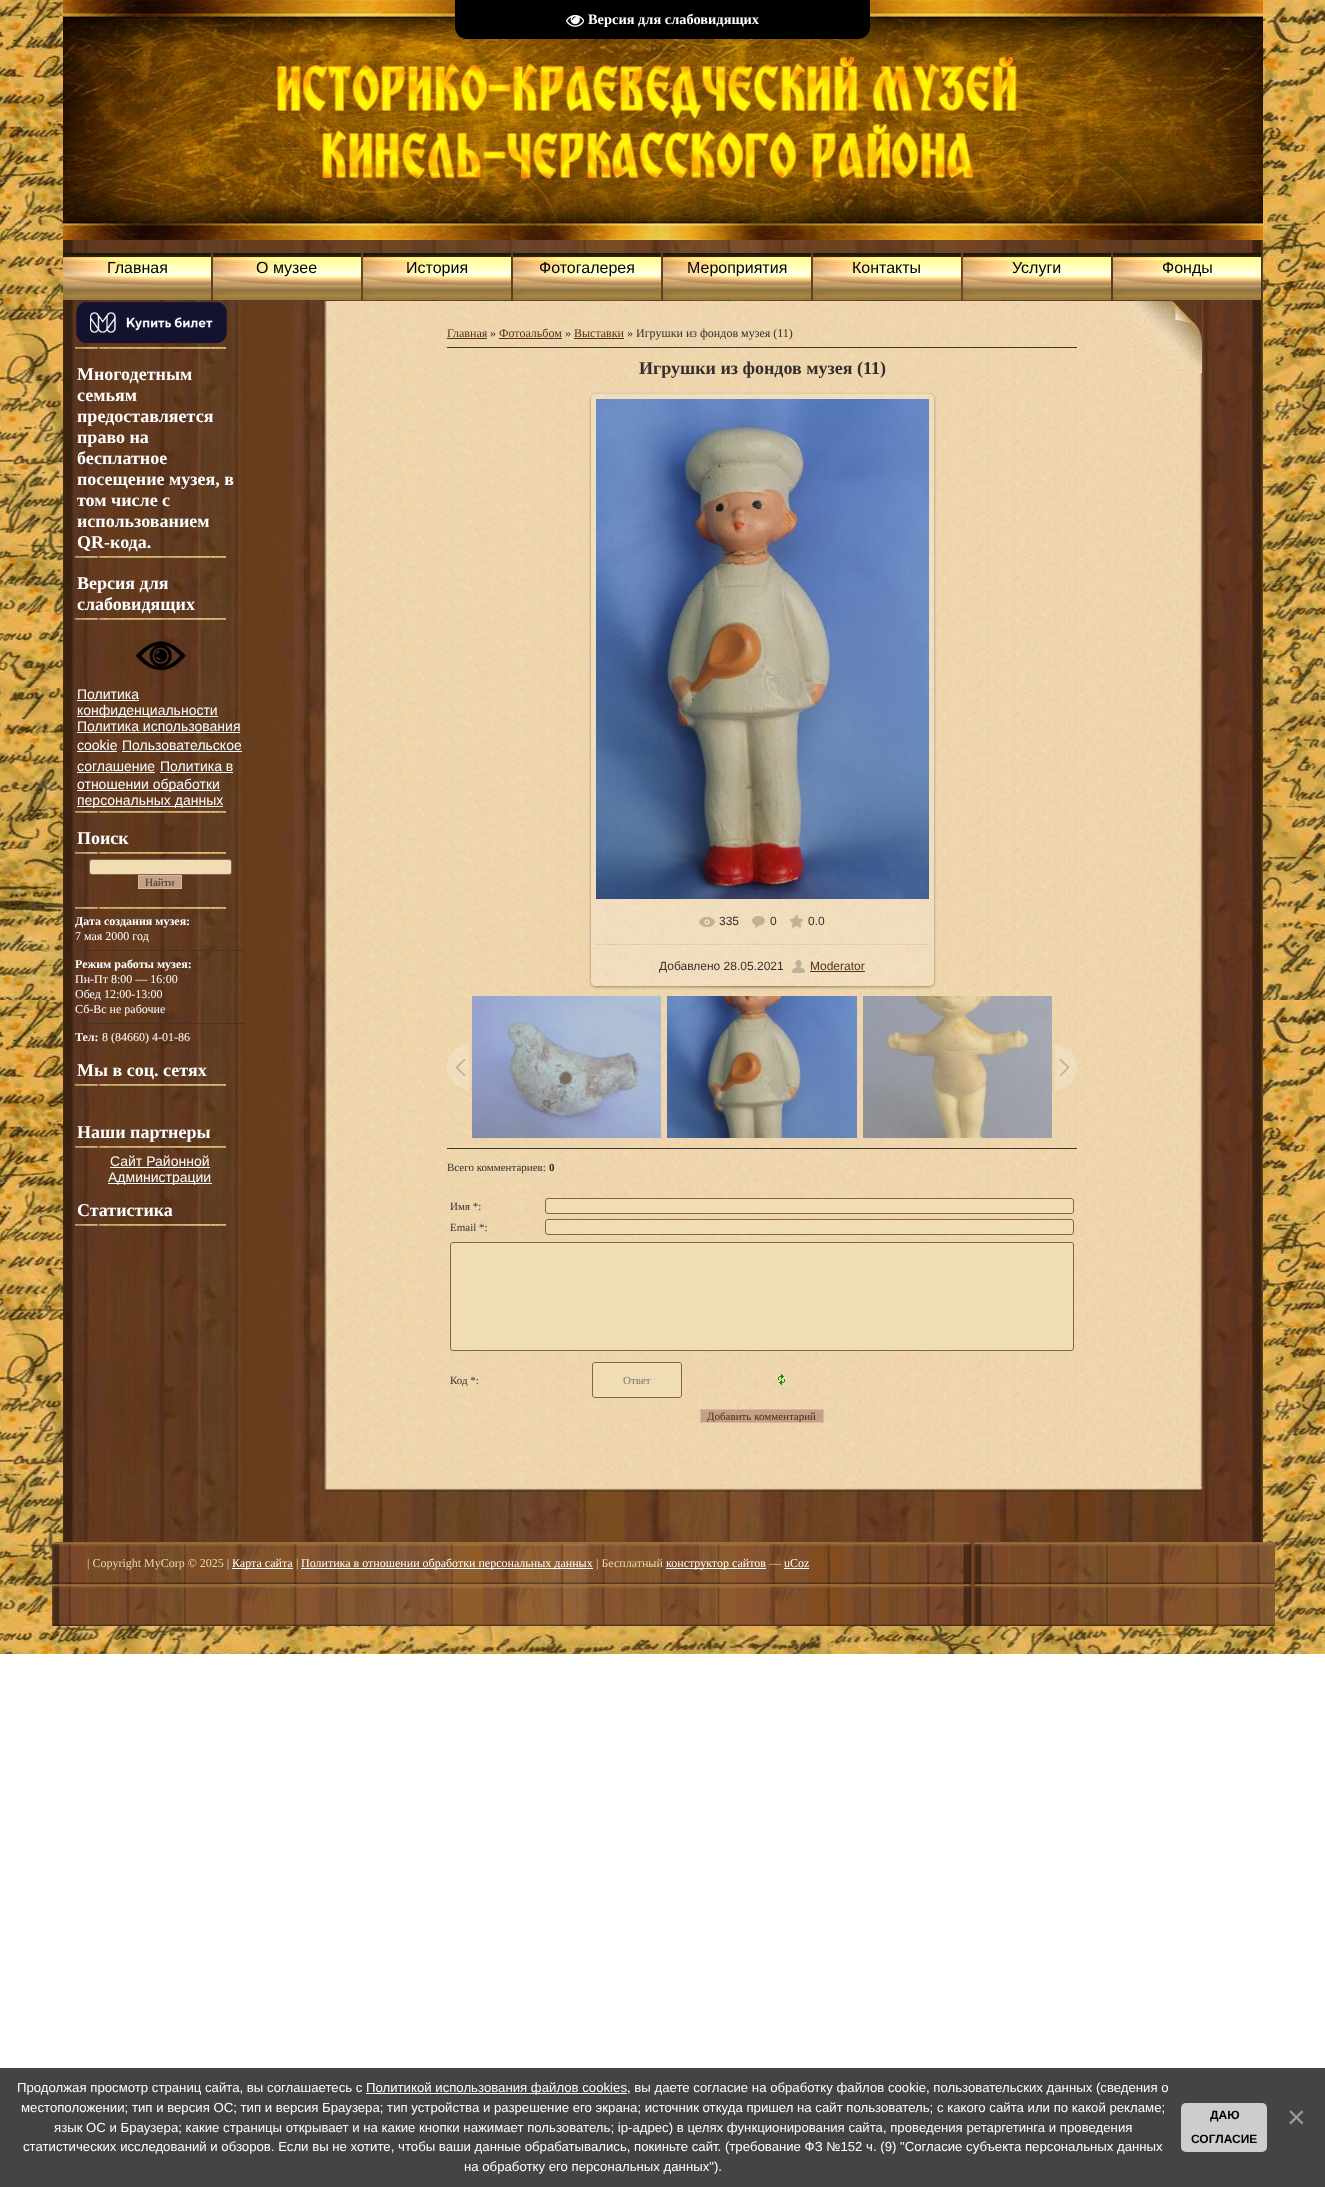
<svg xmlns="http://www.w3.org/2000/svg" width="1325" height="2187" viewBox="0 0 1325 2187">
  <defs>
    <clipPath id="clip1"><path d="M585 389H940V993H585ZM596 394H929C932 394 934 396 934 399V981C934 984 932 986 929 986H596C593 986 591 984 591 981V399C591 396 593 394 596 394Z" clip-rule="evenodd"/></clipPath>
    <filter id="blur1" x="-50%" y="-200%" width="200%" height="500%"><feGaussianBlur stdDeviation="1.5"/></filter>
    <clipPath id="clip2"><rect x="701" y="1410" width="122" height="12"/></clipPath>
  </defs>
  <rect width="100%" height="100%" fill="#ffffff"/>
  <image x="0" y="0" width="1325" height="1654" href="img2.png"/>
  <image x="63" y="0" width="1200" height="240" href="img4.png"/>
  <path d="M455 0H870V27C870 33.5 864.5 39 858 39H467C460.5 39 455 33.5 455 27Z" fill="#000000"/>
  <image x="566" y="14" width="18" height="13" href="img1.png"/>
  <text x="588" y="24" font-family="Liberation Serif" font-size="14.4" font-weight="bold" fill="#ffffff">Версия для слабовидящих</text>
  <image x="63" y="240" width="1200" height="1386" href="img3.png"/>
  <image x="63" y="253" width="148" height="47" href="img5.png"/>
  <text x="107" y="273" font-family="Liberation Sans" font-size="16" fill="#000000">Главная</text>
  <image x="213" y="253" width="148" height="47" href="img5.png"/>
  <text x="256" y="273" font-family="Liberation Sans" font-size="16" fill="#000000">О музее</text>
  <image x="363" y="253" width="148" height="47" href="img5.png"/>
  <text x="406" y="273" font-family="Liberation Sans" font-size="16" fill="#000000">История</text>
  <image x="513" y="253" width="148" height="47" href="img5.png"/>
  <text x="539" y="273" font-family="Liberation Sans" font-size="16" fill="#000000">Фотогалерея</text>
  <image x="663" y="253" width="148" height="47" href="img5.png"/>
  <text x="687" y="273" font-family="Liberation Sans" font-size="16" fill="#000000">Мероприятия</text>
  <image x="813" y="253" width="148" height="47" href="img5.png"/>
  <text x="852" y="273" font-family="Liberation Sans" font-size="16" fill="#000000">Контакты</text>
  <image x="963" y="253" width="148" height="47" href="img5.png"/>
  <text x="1012" y="273" font-family="Liberation Sans" font-size="16" fill="#000000">Услуги</text>
  <image x="1113" y="253" width="148" height="47" href="img5.png"/>
  <text x="1162" y="273" font-family="Liberation Sans" font-size="16" fill="#000000">Фонды</text>
  <image x="322" y="1487" width="881" height="5" href="img6.png"/>
  <image x="322" y="301" width="881" height="1187" href="img7.png"/>
  <image x="76" y="301" width="151" height="43" href="img8.png"/>
  <image x="75" y="347" width="151" height="2" href="img9.png"/>
  <image x="75" y="556" width="151" height="2" href="img9.png"/>
  <text x="77" y="380" font-family="Liberation Serif" font-size="18" font-weight="bold" fill="#ffffff">Многодетным</text>
  <text x="77" y="401" font-family="Liberation Serif" font-size="18" font-weight="bold" fill="#ffffff">семьям</text>
  <text x="77" y="422" font-family="Liberation Serif" font-size="18" font-weight="bold" fill="#ffffff">предоставляется</text>
  <text x="77" y="443" font-family="Liberation Serif" font-size="18" font-weight="bold" fill="#ffffff">право на</text>
  <text x="77" y="464" font-family="Liberation Serif" font-size="18" font-weight="bold" fill="#ffffff">бесплатное</text>
  <text x="77" y="485" font-family="Liberation Serif" font-size="18" font-weight="bold" fill="#ffffff">посещение музея, в</text>
  <text x="77" y="506" font-family="Liberation Serif" font-size="18" font-weight="bold" fill="#ffffff">том числе с</text>
  <text x="77" y="527" font-family="Liberation Serif" font-size="18" font-weight="bold" fill="#ffffff">использованием</text>
  <text x="77" y="548" font-family="Liberation Serif" font-size="18" font-weight="bold" fill="#ffffff">QR-кода.</text>
  <image x="75" y="618" width="151" height="2" href="img9.png"/>
  <text x="77" y="589" font-family="Liberation Serif" font-size="18" font-weight="bold" fill="#ffffff">Версия для</text>
  <text x="77" y="610" font-family="Liberation Serif" font-size="18" font-weight="bold" fill="#ffffff">слабовидящих</text>
  <image x="135" y="641" width="51" height="30" href="img10.png"/>
  <image x="75" y="811" width="151" height="2" href="img9.png"/>
  <text x="77" y="699" font-family="Liberation Sans" font-size="14" fill="#ffffff">Политика</text>
  <rect x="77" y="700" width="62" height="1" fill="#ffffff"/>
  <rect x="77" y="716" width="141" height="1" fill="#ffffff"/>
  <text x="77" y="715" font-family="Liberation Sans" font-size="14" fill="#ffffff">конфиденциальности</text>
  <text x="77" y="731" font-family="Liberation Sans" font-size="14" fill="#ffffff">Политика использования</text>
  <rect x="77" y="732" width="163" height="1" fill="#ffffff"/>
  <text x="77" y="750" font-family="Liberation Sans" font-size="14" fill="#ffffff">cookie</text>
  <rect x="77" y="751" width="40" height="1" fill="#ffffff"/>
  <text x="122" y="750" font-family="Liberation Sans" font-size="14" fill="#ffffff">Пользовательское</text>
  <rect x="122" y="751" width="120" height="1" fill="#ffffff"/>
  <text x="77" y="771" font-family="Liberation Sans" font-size="14" fill="#ffffff">соглашение</text>
  <rect x="77" y="772" width="78" height="1" fill="#ffffff"/>
  <text x="160" y="771" font-family="Liberation Sans" font-size="14" fill="#ffffff">Политика в</text>
  <rect x="160" y="772" width="73" height="1" fill="#ffffff"/>
  <rect x="77" y="790" width="143" height="1" fill="#ffffff"/>
  <text x="77" y="789" font-family="Liberation Sans" font-size="14" fill="#ffffff">отношении обработки</text>
  <rect x="77" y="806" width="146" height="1" fill="#ffffff"/>
  <text x="77" y="805" font-family="Liberation Sans" font-size="14" fill="#ffffff">персональных данных</text>
  <image x="75" y="852" width="151" height="2" href="img9.png"/>
  <text x="77" y="844" font-family="Liberation Serif" font-size="18" font-weight="bold" fill="#ffffff">Поиск</text>
  <rect x="89.5" y="859.5" width="142" height="15" rx="2.5" fill="#f0ddb4" stroke="#866545"/>
  <rect x="138.5" y="875.5" width="43" height="13" fill="#c3a087" stroke="#d9b6a0"/>
  <text x="145" y="886" font-family="Liberation Serif" font-size="11" fill="#442f1f">Найти</text>
  <image x="75" y="907" width="151" height="2" href="img9.png"/>
  <text x="75" y="925" font-family="Liberation Serif" font-size="12" font-weight="bold" fill="#ffffff">Дата создания музея:</text>
  <text x="75" y="940" font-family="Liberation Serif" font-size="12" fill="#ffffff">7 мая 2000 год</text>
  <rect x="75" y="950" width="170" height="1" fill="#42352b"/>
  <text x="75" y="968" font-family="Liberation Serif" font-size="12" font-weight="bold" fill="#ffffff">Режим работы музея:</text>
  <text x="75" y="983" font-family="Liberation Serif" font-size="12" fill="#ffffff">Пн-Пт 8:00 — 16:00</text>
  <text x="75" y="998" font-family="Liberation Serif" font-size="12" fill="#ffffff">Обед 12:00-13:00</text>
  <text x="75" y="1013" font-family="Liberation Serif" font-size="12" fill="#ffffff">Сб-Вс не рабочие</text>
  <rect x="75" y="1023" width="170" height="1" fill="#42352b"/>
  <text x="75" y="1041" font-family="Liberation Serif" font-size="12" font-weight="bold" fill="#ffffff">Тел:</text>
  <text x="102" y="1041" font-family="Liberation Serif" font-size="12" fill="#ffffff">8 (84660) 4-01-86</text>
  <image x="75" y="1084" width="151" height="2" href="img9.png"/>
  <text x="77" y="1076" font-family="Liberation Serif" font-size="18" font-weight="bold" fill="#ffffff">Мы в соц. сетях</text>
  <image x="75" y="1146" width="151" height="2" href="img9.png"/>
  <text x="77" y="1138" font-family="Liberation Serif" font-size="18" font-weight="bold" fill="#ffffff">Наши партнеры</text>
  <text x="110" y="1166" font-family="Liberation Sans" font-size="14" fill="#ffffff">Сайт Районной</text>
  <rect x="110" y="1167" width="100" height="1" fill="#ffffff"/>
  <rect x="108" y="1183" width="104" height="1" fill="#ffffff"/>
  <text x="108" y="1182" font-family="Liberation Sans" font-size="14" fill="#ffffff">Администрации</text>
  <image x="75" y="1224" width="151" height="2" href="img9.png"/>
  <text x="77" y="1216" font-family="Liberation Serif" font-size="18" font-weight="bold" fill="#ffffff">Статистика</text>
  <image x="1127" y="301" width="75" height="72" href="img11.png"/>
  <text x="447" y="337" font-family="Liberation Serif" font-size="12" fill="#55311a">Главная</text>
  <rect x="447" y="338" width="40" height="1" fill="#55311a"/>
  <text x="490" y="337" font-family="Liberation Serif" font-size="12" fill="#352f2b">»</text>
  <text x="499" y="337" font-family="Liberation Serif" font-size="12" fill="#55311a">Фотоальбом</text>
  <rect x="499" y="338" width="63" height="1" fill="#55311a"/>
  <text x="565" y="337" font-family="Liberation Serif" font-size="12" fill="#352f2b">»</text>
  <text x="574" y="337" font-family="Liberation Serif" font-size="12" fill="#55311a">Выставки</text>
  <rect x="574" y="338" width="50" height="1" fill="#55311a"/>
  <text x="627" y="337" font-family="Liberation Serif" font-size="12" fill="#352f2b">» Игрушки из фондов музея (11)</text>
  <rect x="447" y="347" width="630" height="1" fill="#42352b"/>
  <text x="639" y="374" font-family="Liberation Serif" font-size="18" font-weight="bold" fill="#352f2b">Игрушки из фондов музея (11)</text>
  <g clip-path="url(#clip1)">
    <rect x="591" y="395" width="343" height="592" rx="5" fill="#000000" fill-opacity="0.37" filter="url(#blur1)"/>
  </g>
  <image x="591" y="394" width="343" height="592" href="img12.png"/>
  <image x="596" y="399" width="333" height="500" href="img13.png"/>
  <image x="699" y="917" width="16" height="10" href="img14.png"/>
  <text x="719" y="925" font-family="Liberation Sans" font-size="12" fill="#352f2b">335</text>
  <image x="752" y="916" width="13" height="12" href="img15.png"/>
  <text x="770" y="925" font-family="Liberation Sans" font-size="12" fill="#352f2b">0</text>
  <image x="790" y="915" width="13" height="13" href="img16.png"/>
  <text x="808" y="925" font-family="Liberation Sans" font-size="12" fill="#352f2b">0.0</text>
  <image x="596" y="944" width="332" height="2" href="img17.png"/>
  <text x="659" y="970" font-family="Liberation Sans" font-size="12" fill="#352f2b">Добавлено 28.05.2021</text>
  <image x="792" y="960" width="13" height="13" href="img18.png"/>
  <text x="810" y="970" font-family="Liberation Sans" font-size="12" fill="#55311a">Moderator</text>
  <rect x="810" y="971" width="55" height="1" fill="#55311a"/>
  <image x="682" y="986" width="161" height="3" href="img19.png"/>
  <image x="447" y="1044" width="22" height="46" href="img20.png"/>
  <image x="472" y="996" width="189" height="142" href="img21.png"/>
  <image x="667" y="996" width="190" height="142" href="img22.png"/>
  <image x="863" y="996" width="189" height="142" href="img23.png"/>
  <image x="1055" y="1044" width="22" height="46" href="img24.png"/>
  <rect x="447" y="1148" width="630" height="1" fill="#42352b"/>
  <text x="447" y="1171" font-family="Liberation Serif" font-size="11" fill="#352f2b">Всего комментариев:</text>
  <text x="549" y="1171" font-family="Liberation Serif" font-size="11" font-weight="bold" fill="#352f2b">0</text>
  <text x="450" y="1210" font-family="Liberation Serif" font-size="11" fill="#352f2b">Имя *:</text>
  <rect x="545.5" y="1198.5" width="528" height="15" rx="2.5" fill="#f0ddb4" stroke="#866545"/>
  <text x="450" y="1231" font-family="Liberation Serif" font-size="11" fill="#352f2b">Email *:</text>
  <rect x="545.5" y="1219.5" width="528" height="15" rx="2.5" fill="#f0ddb4" stroke="#866545"/>
  <rect x="450.5" y="1242.5" width="623" height="108" rx="2.5" fill="#f0ddb4" stroke="#866545"/>
  <text x="450" y="1384" font-family="Liberation Serif" font-size="11" fill="#352f2b">Код *:</text>
  <rect x="592.5" y="1362.5" width="89" height="35" rx="2.5" fill="#f0ddb4" stroke="#866545"/>
  <text x="623" y="1384" font-family="Liberation Serif" font-size="11" fill="#757575">Ответ</text>
  <image x="778" y="1374" width="7" height="11" href="img25.png"/>
  <rect x="700.5" y="1409.5" width="123" height="13" fill="#c3a087" stroke="#d9b6a0"/>
  <g clip-path="url(#clip2)">
    <text x="707" y="1420" font-family="Liberation Serif" font-size="11" fill="#442f1f">Добавить комментарий</text>
  </g>
  <image x="52" y="1542" width="1223" height="84" href="img26.png"/>
  <text x="87" y="1567" font-family="Liberation Serif" font-size="12" fill="#edd9ac">| Copyright MyCorp © 2025 |</text>
  <rect x="232" y="1568" width="61" height="1" fill="#ffffff"/>
  <text x="232" y="1567" font-family="Liberation Serif" font-size="12" fill="#ffffff">Карта сайта</text>
  <text x="296" y="1567" font-family="Liberation Serif" font-size="12" fill="#edd9ac">|</text>
  <rect x="301" y="1568" width="292" height="1" fill="#ffffff"/>
  <text x="301" y="1567" font-family="Liberation Serif" font-size="12" fill="#ffffff">Политика в отношении обработки персональных данных</text>
  <text x="596" y="1567" font-family="Liberation Serif" font-size="12" fill="#edd9ac">| Бесплатный</text>
  <rect x="666" y="1568" width="100" height="1" fill="#ffffff"/>
  <text x="666" y="1567" font-family="Liberation Serif" font-size="12" fill="#ffffff">конструктор сайтов</text>
  <text x="769" y="1567" font-family="Liberation Serif" font-size="12" fill="#edd9ac">—</text>
  <text x="784" y="1567" font-family="Liberation Serif" font-size="12" fill="#ffffff">uCoz</text>
  <rect x="784" y="1568" width="25" height="1" fill="#ffffff"/>
  <rect x="0" y="2068" width="1325" height="119" fill="#444444"/>
  <text x="17" y="2092" font-family="Liberation Sans" font-size="13.2" fill="#ffffff">Продолжая просмотр страниц сайта, вы соглашаетесь с</text>
  <rect x="366" y="2093" width="261" height="1" fill="#ffffff"/>
  <text x="366" y="2092" font-family="Liberation Sans" font-size="13.2" fill="#ffffff">Политикой использования файлов cookies, вы даете согласие на обработку файлов cookie, пользовательских данных (сведения о</text>
  <text x="21" y="2112" font-family="Liberation Sans" font-size="13.2" fill="#ffffff">местоположении; тип и версия ОС; тип и версия Браузера; тип устройства и разрешение его экрана; источник откуда пришел на сайт пользователь; с какого сайта или по какой рекламе;</text>
  <text x="54" y="2132" font-family="Liberation Sans" font-size="13.2" fill="#ffffff">язык ОС и Браузера; какие страницы открывает и на какие кнопки нажимает пользователь; ip-адрес) в целях функционирования сайта, проведения ретаргетинга и проведения</text>
  <text x="23" y="2151" font-family="Liberation Sans" font-size="13.2" fill="#ffffff">статистических исследований и обзоров. Если вы не хотите, чтобы ваши данные обрабатывались, покиньте сайт. (требование ФЗ №152 ч. (9) "Согласие субъекта персональных данных</text>
  <text x="464" y="2171" font-family="Liberation Sans" font-size="13.2" fill="#ffffff">на обработку его персональных данных").</text>
  <rect x="1181" y="2103" width="86" height="49" rx="5" fill="#cdcdcd"/>
  <text x="1210" y="2119" font-family="Liberation Sans" font-size="12" font-weight="bold" fill="#000000">ДАЮ</text>
  <text x="1191" y="2143" font-family="Liberation Sans" font-size="12" font-weight="bold" fill="#000000">СОГЛАСИЕ</text>
  <text x="1287" y="2128" font-family="Liberation Sans" font-size="32" fill="#999999">×</text>
</svg>
